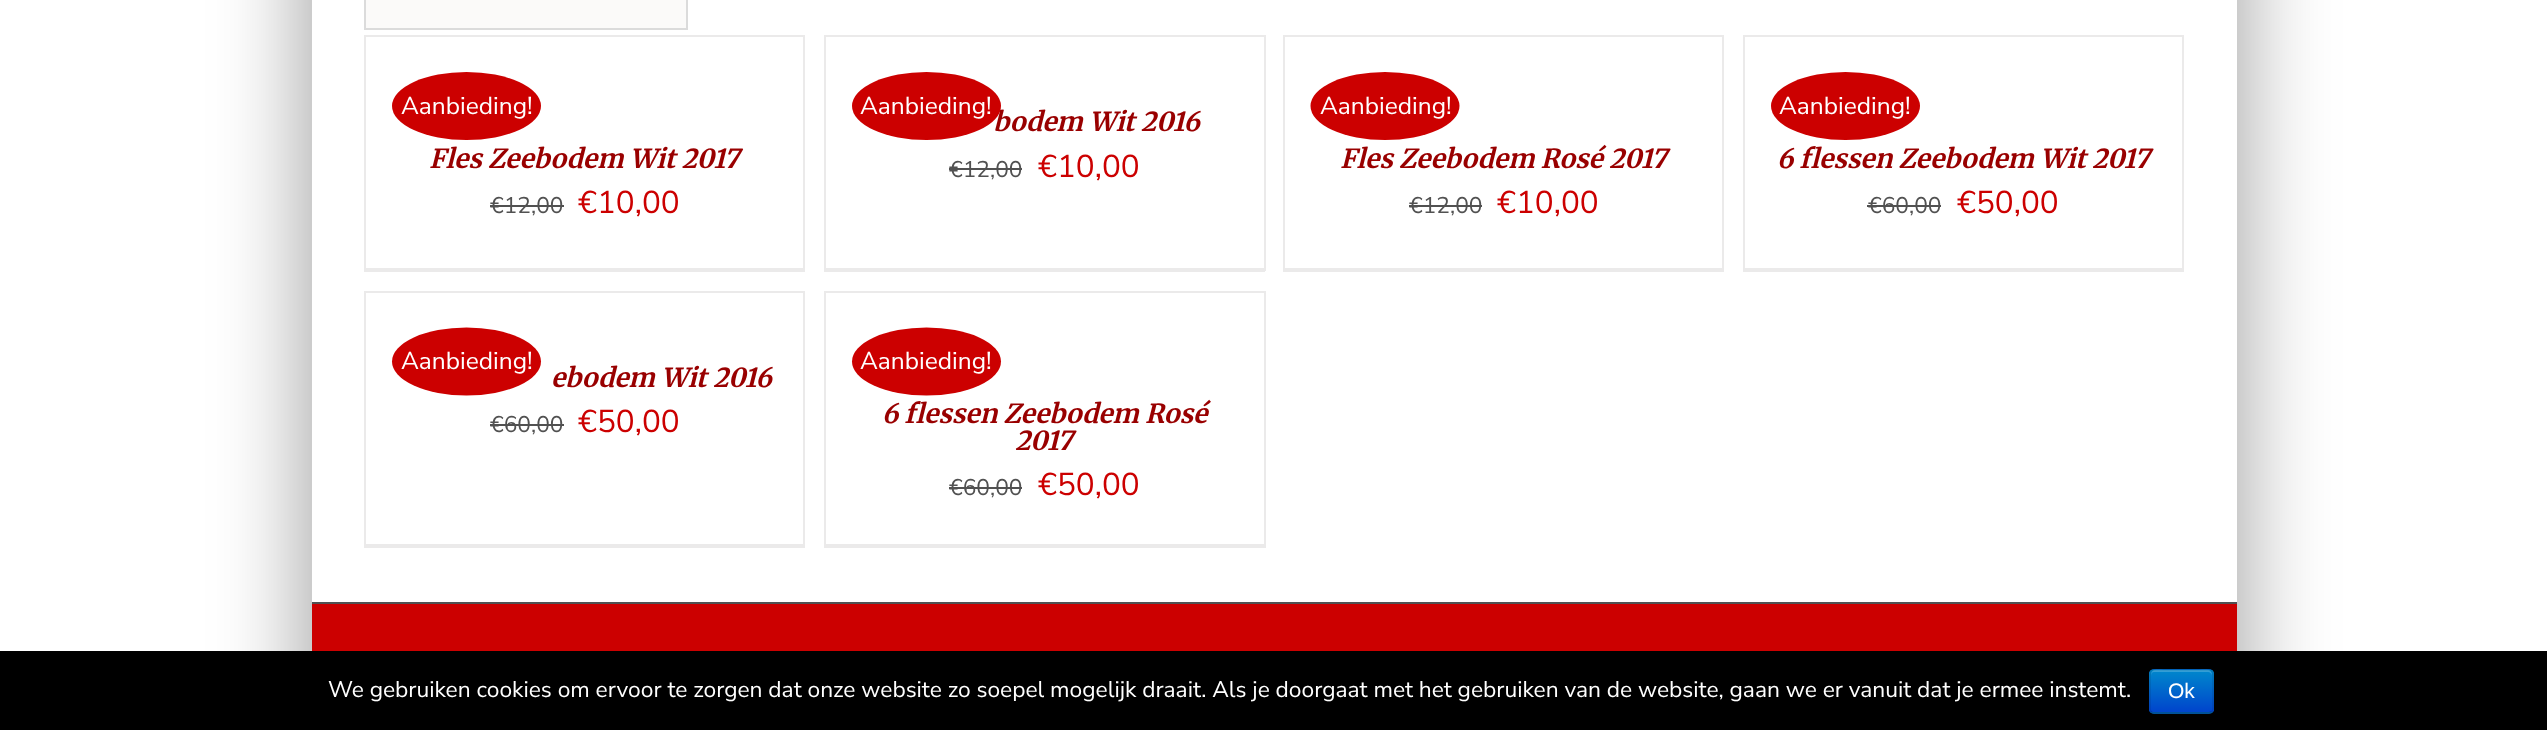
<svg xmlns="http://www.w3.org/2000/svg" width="2547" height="730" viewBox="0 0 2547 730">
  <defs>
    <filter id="blur1" x="-50%" y="-200%" width="200%" height="500%"><feGaussianBlur stdDeviation="44"/></filter>
    <clipPath id="clip1"><rect x="2149" y="669" width="65" height="45" rx="5"/></clipPath>
    <linearGradient id="g1" gradientUnits="userSpaceOnUse" x1="2181" y1="670" x2="2181" y2="712"><stop offset="0" stop-color="#0088cc"/><stop offset="1" stop-color="#0044cc"/></linearGradient>
  </defs>
  <rect width="100%" height="100%" fill="#ffffff"/>
  <rect x="303" y="-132" width="1942" height="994" fill="#000000" fill-opacity="0.35" filter="url(#blur1)"/>
  <rect x="312" y="0" width="1925" height="602" fill="#ffffff"/>
  <rect x="365" y="-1" width="322" height="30" fill="#fbfaf9" stroke="#dbdbdb" stroke-width="2"/>
  <rect x="364" y="35" width="441" height="2" fill="#ebeaea"/>
  <rect x="803" y="35" width="2" height="236" fill="#ebeaea"/>
  <rect x="364" y="268" width="441" height="4" fill="#ebeaea"/>
  <rect x="364" y="35" width="2" height="236" fill="#ebeaea"/>
  <ellipse cx="466.5" cy="106" rx="74.5" ry="34" fill="#cc0000"/>
  <text x="401" y="114" font-family="Nunito Sans" font-size="24.5" font-weight="200" fill="#ffffff">Aanbieding!</text>
  <text x="429" y="168" font-family="Merriweather" font-size="26.25" font-weight="300" font-style="italic" fill="#990000">Fles Zeebodem Wit 2017</text>
  <text x="490" y="213" font-family="Nunito Sans" font-size="22.75" font-weight="200" fill="#515151">€12,00</text>
  <rect x="490" y="205" width="74" height="2" fill="#515151"/>
  <text x="578" y="213" font-family="Nunito Sans" font-size="31.5" font-weight="200" fill="#cc0000">€10,00</text>
  <rect x="824" y="35" width="441" height="2" fill="#ebeaea"/>
  <rect x="1264" y="35" width="2" height="236" fill="#ebeaea"/>
  <rect x="824" y="268" width="441" height="4" fill="#ebeaea"/>
  <rect x="824" y="35" width="2" height="236" fill="#ebeaea"/>
  <text x="993" y="131" font-family="Merriweather" font-size="26.25" font-weight="300" font-style="italic" fill="#990000">bodem Wit 2016</text>
  <ellipse cx="926.5" cy="106" rx="74.5" ry="34" fill="#cc0000"/>
  <text x="860" y="114" font-family="Nunito Sans" font-size="24.5" font-weight="200" fill="#ffffff">Aanbieding!</text>
  <text x="949" y="177" font-family="Nunito Sans" font-size="22.75" font-weight="200" fill="#515151">€12,00</text>
  <rect x="949" y="168" width="73" height="2" fill="#515151"/>
  <text x="1038" y="177" font-family="Nunito Sans" font-size="31.5" font-weight="200" fill="#cc0000">€10,00</text>
  <rect x="1283" y="35" width="441" height="2" fill="#ebeaea"/>
  <rect x="1722" y="35" width="2" height="236" fill="#ebeaea"/>
  <rect x="1283" y="268" width="441" height="4" fill="#ebeaea"/>
  <rect x="1283" y="35" width="2" height="236" fill="#ebeaea"/>
  <ellipse cx="1385" cy="106" rx="74.5" ry="34" fill="#cc0000"/>
  <text x="1320" y="114" font-family="Nunito Sans" font-size="24.5" font-weight="200" fill="#ffffff">Aanbieding!</text>
  <text x="1340" y="168" font-family="Merriweather" font-size="26.25" font-weight="300" font-style="italic" fill="#990000">Fles Zeebodem Rosé 2017</text>
  <text x="1409" y="213" font-family="Nunito Sans" font-size="22.75" font-weight="200" fill="#515151">€12,00</text>
  <rect x="1409" y="205" width="73" height="2" fill="#515151"/>
  <text x="1497" y="213" font-family="Nunito Sans" font-size="31.5" font-weight="200" fill="#cc0000">€10,00</text>
  <rect x="1743" y="35" width="441" height="2" fill="#ebeaea"/>
  <rect x="2182" y="35" width="2" height="236" fill="#ebeaea"/>
  <rect x="1743" y="268" width="441" height="4" fill="#ebeaea"/>
  <rect x="1743" y="35" width="2" height="236" fill="#ebeaea"/>
  <ellipse cx="1845.5" cy="106" rx="74.5" ry="34" fill="#cc0000"/>
  <text x="1779" y="114" font-family="Nunito Sans" font-size="24.5" font-weight="200" fill="#ffffff">Aanbieding!</text>
  <text x="1777" y="168" font-family="Merriweather" font-size="26.25" font-weight="300" font-style="italic" fill="#990000">6 flessen Zeebodem Wit 2017</text>
  <text x="1868" y="213" font-family="Nunito Sans" font-size="22.75" font-weight="200" fill="#515151">€60,00</text>
  <rect x="1867" y="205" width="74" height="2" fill="#515151"/>
  <text x="1957" y="213" font-family="Nunito Sans" font-size="31.5" font-weight="200" fill="#cc0000">€50,00</text>
  <rect x="364" y="291" width="441" height="2" fill="#ebeaea"/>
  <rect x="803" y="291" width="2" height="257" fill="#ebeaea"/>
  <rect x="364" y="544" width="441" height="4" fill="#ebeaea"/>
  <rect x="364" y="291" width="2" height="257" fill="#ebeaea"/>
  <ellipse cx="466.5" cy="361.5" rx="74.5" ry="34" fill="#cc0000"/>
  <text x="401" y="369" font-family="Nunito Sans" font-size="24.5" font-weight="200" fill="#ffffff">Aanbieding!</text>
  <text x="551" y="387" font-family="Merriweather" font-size="26.25" font-weight="300" font-style="italic" fill="#990000">ebodem Wit 2016</text>
  <text x="490" y="432" font-family="Nunito Sans" font-size="22.75" font-weight="200" fill="#515151">€60,00</text>
  <rect x="490" y="424" width="74" height="2" fill="#515151"/>
  <text x="578" y="432" font-family="Nunito Sans" font-size="31.5" font-weight="200" fill="#cc0000">€50,00</text>
  <rect x="824" y="291" width="441" height="2" fill="#ebeaea"/>
  <rect x="1264" y="291" width="2" height="257" fill="#ebeaea"/>
  <rect x="824" y="544" width="441" height="4" fill="#ebeaea"/>
  <rect x="824" y="291" width="2" height="257" fill="#ebeaea"/>
  <ellipse cx="926.5" cy="361.5" rx="74.5" ry="34" fill="#cc0000"/>
  <text x="860" y="369" font-family="Nunito Sans" font-size="24.5" font-weight="200" fill="#ffffff">Aanbieding!</text>
  <text x="882" y="423" font-family="Merriweather" font-size="26.25" font-weight="300" font-style="italic" fill="#990000">6 flessen Zeebodem Rosé</text>
  <text x="1015" y="450" font-family="Merriweather" font-size="26.25" font-weight="300" font-style="italic" fill="#990000">2017</text>
  <text x="949" y="495" font-family="Nunito Sans" font-size="22.75" font-weight="200" fill="#515151">€60,00</text>
  <rect x="949" y="487" width="73" height="2" fill="#515151"/>
  <text x="1038" y="495" font-family="Nunito Sans" font-size="31.5" font-weight="200" fill="#cc0000">€50,00</text>
  <rect x="312" y="604" width="1925" height="47" fill="#cc0000"/>
  <rect x="312" y="602" width="1925" height="2" fill="#505152"/>
  <rect x="0" y="651" width="2547" height="79" fill="#000000"/>
  <text x="328" y="697" font-family="Nunito Sans" font-size="22.75" font-weight="200" fill="#ffffff">We gebruiken cookies om ervoor te zorgen dat onze website zo soepel mogelijk draait. Als je doorgaat met het gebruiken van de website, gaan we er vanuit dat je ermee instemt.</text>
  <rect x="2149" y="669" width="65" height="45" rx="5" fill="#006dcc"/>
  <g clip-path="url(#clip1)">
    <rect x="2149" y="670" width="65" height="42" fill="url(#g1)"/>
  </g>
  <path d="M2154 672H2208C2210 672 2212 674 2212 676C2212 668 2206 670 2199 670H2164C2157 670 2151 668 2151 676C2151 674 2152 672 2154 672Z" fill="#ffffff" fill-opacity="0.2"/>
  <path d="M2211.5 712C2211 712.5 2209.5 713 2208.5 713H2154C2153 713 2152 712.5 2151 712" fill="none" stroke="#000000" stroke-opacity="0.25" stroke-width="1.8"/>
  <path d="M2151 712C2150.5 711 2150 710 2150 709V674C2150 672.5 2150.5 671.5 2151 670.5C2152 670 2153 669.5 2154 669.5H2208.5C2209.5 669.5 2211 670 2211.5 670.5C2212.5 671.5 2213 672.5 2213 674V709C2213 710 2212.5 711 2211.5 712" fill="none" stroke="#000000" stroke-opacity="0.1" stroke-width="1.8"/>
  <text x="2168" y="698" font-family="Liberation Sans" font-size="21" fill="#ffffff">Ok</text>
</svg>
